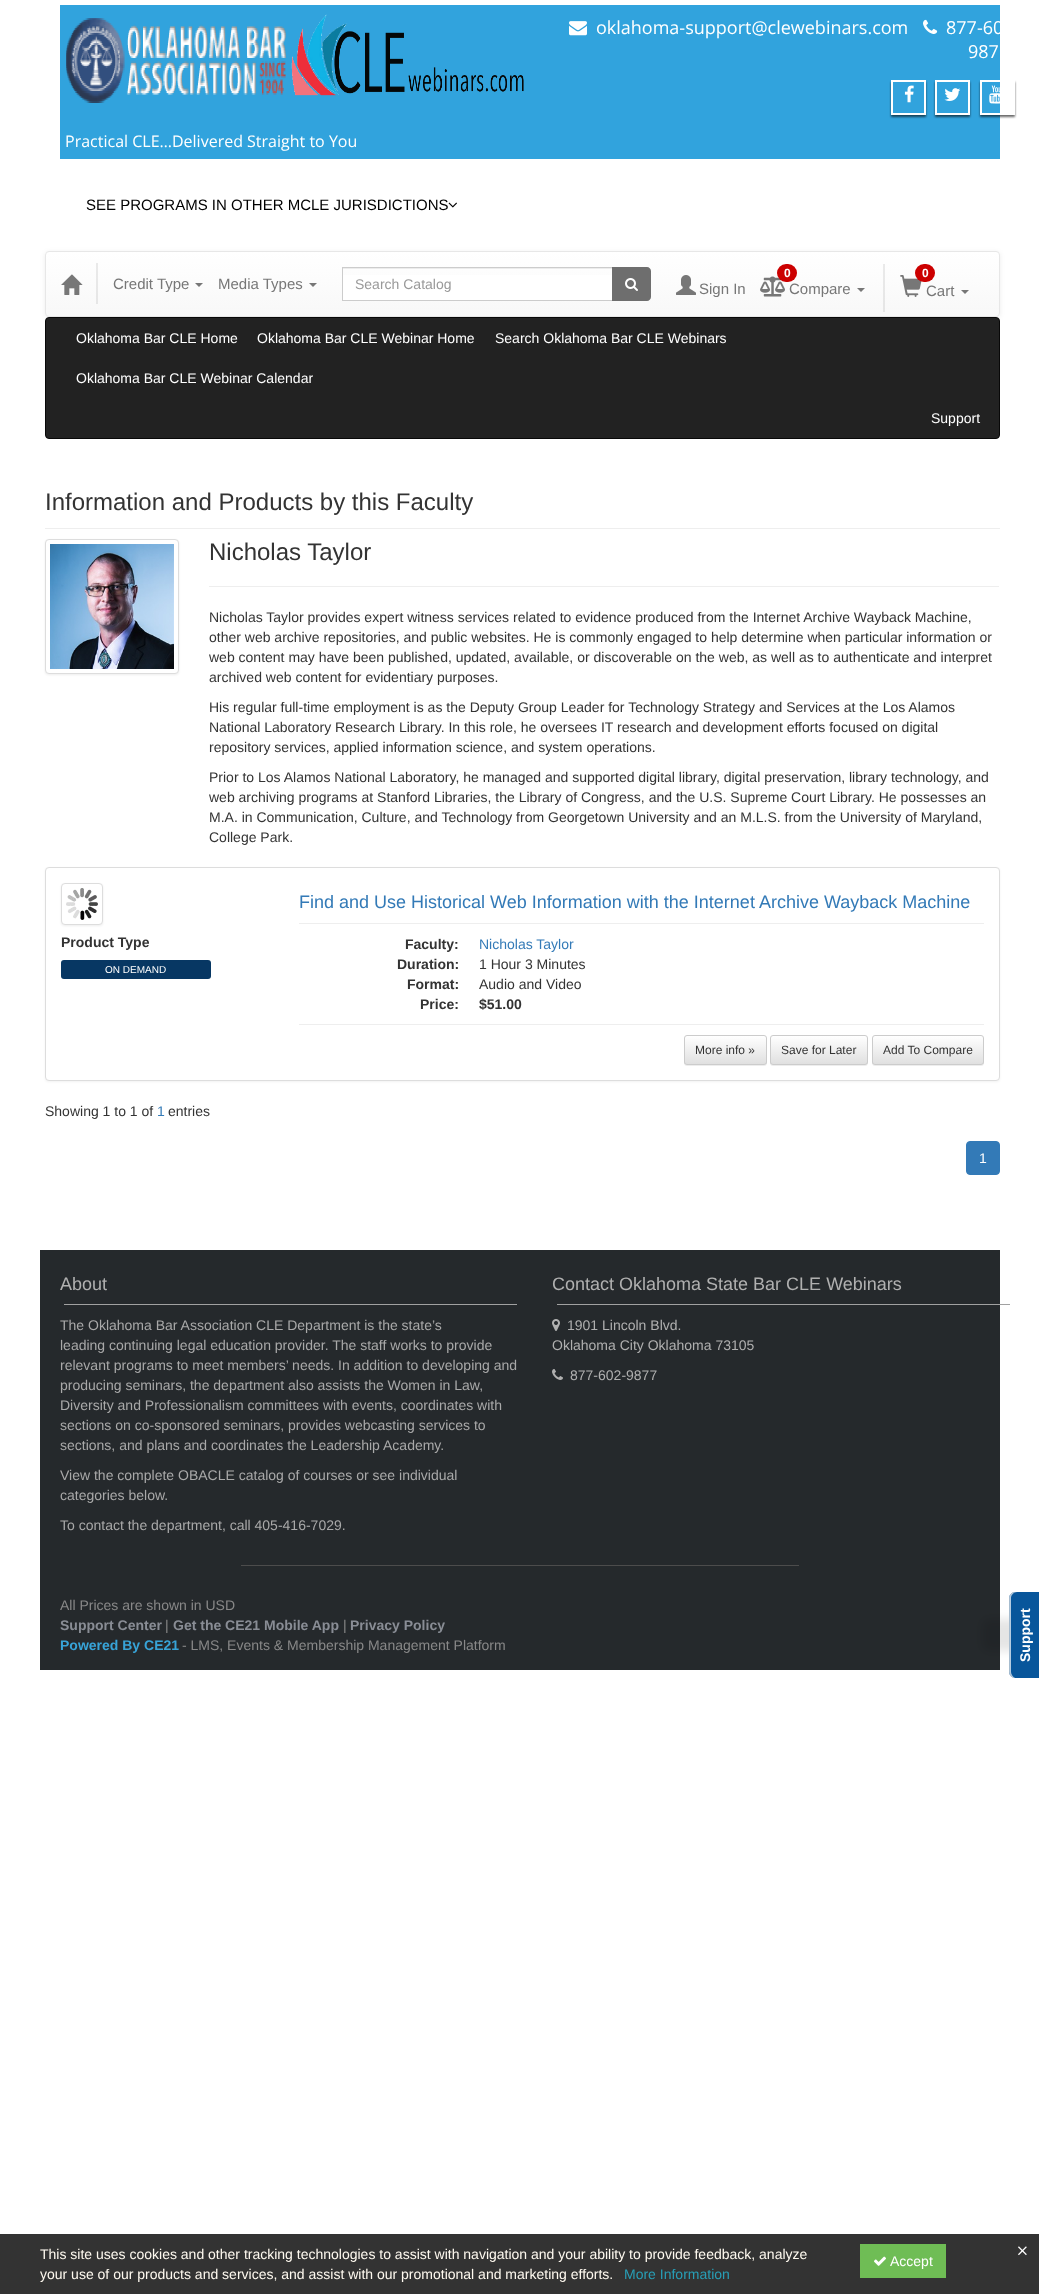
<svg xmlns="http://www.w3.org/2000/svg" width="1039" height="2294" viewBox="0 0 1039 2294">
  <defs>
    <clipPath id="clip1"><path d="M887 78H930V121H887ZM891 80H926V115H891Z" clip-rule="evenodd"/></clipPath>
    <filter id="blur1" x="-50%" y="-200%" width="200%" height="500%"><feGaussianBlur stdDeviation="1"/></filter>
    <clipPath id="clip2"><path d="M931 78H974V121H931ZM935 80H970V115H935Z" clip-rule="evenodd"/></clipPath>
    <clipPath id="clip3"><path d="M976 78H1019V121H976ZM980 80H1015V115H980Z" clip-rule="evenodd"/></clipPath>
    <filter id="blur2" x="-50%" y="-200%" width="200%" height="500%"><feGaussianBlur stdDeviation="2.5"/></filter>
    <clipPath id="clip4"><rect x="45" y="251" width="955" height="66" rx="4"/></clipPath>
    <linearGradient id="g1" gradientUnits="userSpaceOnUse" x1="523" y1="252" x2="523" y2="316"><stop offset="0" stop-color="#ffffff"/><stop offset="1" stop-color="#f8f8f8"/></linearGradient>
    <linearGradient id="g2" gradientUnits="userSpaceOnUse" x1="523" y1="252" x2="523" y2="316"><stop offset="0" stop-color="#ebebeb"/><stop offset="1" stop-color="#e5e5e5"/></linearGradient>
    <filter id="blur3" x="-50%" y="-200%" width="200%" height="500%"><feGaussianBlur stdDeviation="0.5"/></filter>
    <clipPath id="clip5"><rect x="684" y="1035" width="83" height="30" rx="3"/></clipPath>
    <linearGradient id="g3" gradientUnits="userSpaceOnUse" x1="726" y1="1036" x2="726" y2="1064"><stop offset="0" stop-color="#ffffff"/><stop offset="1" stop-color="#e0e0e0"/></linearGradient>
    <clipPath id="clip6"><rect x="770" y="1035" width="98" height="30" rx="3"/></clipPath>
    <linearGradient id="g4" gradientUnits="userSpaceOnUse" x1="819" y1="1036" x2="819" y2="1064"><stop offset="0" stop-color="#ffffff"/><stop offset="1" stop-color="#e0e0e0"/></linearGradient>
    <clipPath id="clip7"><rect x="872" y="1035" width="112" height="30" rx="3"/></clipPath>
    <linearGradient id="g5" gradientUnits="userSpaceOnUse" x1="928" y1="1036" x2="928" y2="1064"><stop offset="0" stop-color="#ffffff"/><stop offset="1" stop-color="#e0e0e0"/></linearGradient>
    <filter id="blur4" x="-50%" y="-200%" width="200%" height="500%"><feGaussianBlur stdDeviation="5"/></filter>
  </defs>
  <rect width="100%" height="100%" fill="#ffffff"/>
  <rect x="60" y="5" width="940" height="154" fill="#31a3dd"/>
  <image x="569" y="21" width="18" height="15" href="img1.png"/>
  <text x="596" y="34" font-family="Open Sans" font-size="18" fill="#ffffff">oklahoma-support@clewebinars.com</text>
  <image x="923" y="19" width="15" height="15" href="img2.png"/>
  <text x="946" y="34" font-family="Open Sans" font-size="18" fill="#ffffff">877-60</text>
  <text x="968" y="58" font-family="Open Sans" font-size="18" fill="#ffffff">987</text>
  <g clip-path="url(#clip1)">
    <rect x="891" y="82" width="35" height="35" fill="#000000" fill-opacity="0.6" filter="url(#blur1)"/>
  </g>
  <rect x="892" y="81" width="33" height="33" fill="none" stroke="#ffffff" stroke-width="2"/>
  <image x="904" y="85" width="10" height="18" href="img3.png"/>
  <g clip-path="url(#clip2)">
    <rect x="935" y="82" width="35" height="35" fill="#000000" fill-opacity="0.6" filter="url(#blur1)"/>
  </g>
  <rect x="936" y="81" width="33" height="33" fill="none" stroke="#ffffff" stroke-width="2"/>
  <image x="944" y="88" width="17" height="13" href="img4.png"/>
  <g clip-path="url(#clip3)">
    <rect x="980" y="82" width="35" height="35" fill="#000000" fill-opacity="0.6" filter="url(#blur1)"/>
  </g>
  <rect x="981" y="81" width="33" height="33" fill="none" stroke="#ffffff" stroke-width="2"/>
  <image x="989" y="85" width="11" height="19" href="img5.png"/>
  <image x="66" y="14" width="458" height="89" href="img6.png"/>
  <text x="65" y="147" font-family="Open Sans" font-size="16" fill="#ffffff">Practical CLE…Delivered Straight to You</text>
  <text x="86" y="210" font-family="Liberation Sans" font-size="15" fill="#000000">SEE PROGRAMS IN OTHER MCLE JURISDICTIONS</text>
  <image x="448" y="202" width="9" height="6" href="img7.png"/>
  <rect x="45" y="252" width="955" height="66" rx="4" fill="#000000" fill-opacity="0.07" filter="url(#blur2)"/>
  <g clip-path="url(#clip4)">
    <rect x="45" y="252" width="955" height="64" fill="url(#g1)"/>
  </g>
  <rect x="883" y="264" width="2" height="48" fill="url(#g2)"/>
  <rect x="96" y="263" width="2" height="41" fill="url(#g2)"/>
  <rect x="45.5" y="251.5" width="954" height="65" rx="3.5" fill="none" stroke="#e7e7e7"/>
  <image x="61" y="274" width="22" height="21" href="img8.png"/>
  <text x="113" y="289" font-family="Liberation Sans" font-size="15" fill="#777777">Credit Type</text>
  <path d="M195 283H203L199 287Z" fill="#777777"/>
  <text x="218" y="289" font-family="Liberation Sans" font-size="15" fill="#777777">Media Types</text>
  <path d="M309 283H317L313 287Z" fill="#777777"/>
  <rect x="343" y="275" width="269" height="25" fill="#ffffff"/>
  <rect x="343" y="268" width="269" height="1" fill="#ececec"/>
  <rect x="342.5" y="267.5" width="270" height="33" fill="none" stroke="#cccccc"/>
  <text x="355" y="289" font-family="Liberation Sans" font-size="14" fill="#999999">Search Catalog</text>
  <path d="M612 267H647C649 267 651 269 651 271V297C651 299 649 301 647 301H612Z" fill="#6e6e6e"/>
  <image x="625" y="278" width="13" height="13" href="img9.png"/>
  <image x="676" y="275" width="20" height="20" href="img10.png"/>
  <text x="699" y="294" font-family="Liberation Sans" font-size="15" fill="#777777">Sign In</text>
  <image x="760" y="276" width="25" height="21" href="img11.png"/>
  <rect x="777" y="264" width="20" height="18" rx="9" fill="#cc0000"/>
  <text x="784" y="277" font-family="Liberation Sans" font-size="12" font-weight="bold" fill="#ffffff">0</text>
  <text x="789" y="294" font-family="Liberation Sans" font-size="15" fill="#777777">Compare</text>
  <path d="M857 288H865L861 292Z" fill="#777777"/>
  <image x="900" y="275" width="22" height="22" href="img12.png"/>
  <rect x="915" y="264" width="20" height="18" rx="9" fill="#cc0000"/>
  <text x="922" y="277" font-family="Liberation Sans" font-size="12" font-weight="bold" fill="#ffffff">0</text>
  <text x="926" y="296" font-family="Liberation Sans" font-size="15" fill="#777777">Cart</text>
  <path d="M961 290H969L965 294Z" fill="#777777"/>
  <rect x="45.5" y="317.5" width="954" height="121" rx="3.5" fill="#222222" stroke="#080808"/>
  <text x="76" y="343" font-family="Liberation Sans" font-size="14" fill="#ffffff">Oklahoma Bar CLE Home</text>
  <text x="257" y="343" font-family="Liberation Sans" font-size="14" fill="#ffffff">Oklahoma Bar CLE Webinar Home</text>
  <text x="495" y="343" font-family="Liberation Sans" font-size="14" fill="#ffffff">Search Oklahoma Bar CLE Webinars</text>
  <text x="76" y="383" font-family="Liberation Sans" font-size="14" fill="#ffffff">Oklahoma Bar CLE Webinar Calendar</text>
  <text x="931" y="423" font-family="Liberation Sans" font-size="14" fill="#ffffff">Support</text>
  <rect x="45" y="528" width="955" height="1" fill="#eeeeee"/>
  <text x="45" y="510" font-family="Liberation Sans" font-size="24" fill="#333333">Information and Products by this Faculty</text>
  <rect x="45" y="540" width="134" height="135" rx="4" fill="#000000" fill-opacity="0.07" filter="url(#blur1)"/>
  <rect x="45.5" y="539.5" width="133" height="134" rx="3.5" fill="#ffffff" stroke="#dddddd"/>
  <image x="50" y="544" width="124" height="125" href="img13.png"/>
  <text x="209" y="560" font-family="Liberation Sans" font-size="24" fill="#333333">Nicholas Taylor</text>
  <rect x="209" y="586" width="790" height="1" fill="#eeeeee"/>
  <text x="209" y="622" font-family="Liberation Sans" font-size="14" fill="#333333">Nicholas Taylor provides expert witness services related to evidence produced from the Internet Archive Wayback Machine,</text>
  <text x="209" y="642" font-family="Liberation Sans" font-size="14" fill="#333333">other web archive repositories, and public websites. He is commonly engaged to help determine when particular information or</text>
  <text x="209" y="662" font-family="Liberation Sans" font-size="14" fill="#333333">web content may have been published, updated, available, or discoverable on the web, as well as to authenticate and interpret</text>
  <text x="209" y="682" font-family="Liberation Sans" font-size="14" fill="#333333">archived web content for evidentiary purposes.</text>
  <text x="209" y="712" font-family="Liberation Sans" font-size="14" fill="#333333">His regular full-time employment is as the Deputy Group Leader for Technology Strategy and Services at the Los Alamos</text>
  <text x="209" y="732" font-family="Liberation Sans" font-size="14" fill="#333333">National Laboratory Research Library. In this role, he oversees IT research and development efforts focused on digital</text>
  <text x="209" y="752" font-family="Liberation Sans" font-size="14" fill="#333333">repository services, applied information science, and system operations.</text>
  <text x="209" y="782" font-family="Liberation Sans" font-size="14" fill="#333333">Prior to Los Alamos National Laboratory, he managed and supported digital library, digital preservation, library technology, and</text>
  <text x="209" y="802" font-family="Liberation Sans" font-size="14" fill="#333333">web archiving programs at Stanford Libraries, the Library of Congress, and the U.S. Supreme Court Library. He possesses an</text>
  <text x="209" y="822" font-family="Liberation Sans" font-size="14" fill="#333333">M.A. in Communication, Culture, and Technology from Georgetown University and an M.L.S. from the University of Maryland,</text>
  <text x="209" y="842" font-family="Liberation Sans" font-size="14" fill="#333333">College Park.</text>
  <rect x="45" y="868" width="955" height="214" rx="4" fill="#000000" fill-opacity="0.05" filter="url(#blur1)"/>
  <rect x="45.5" y="867.5" width="954" height="213" rx="3.5" fill="#ffffff" stroke="#dddddd"/>
  <rect x="61" y="884" width="42" height="42" rx="4" fill="#000000" fill-opacity="0.07" filter="url(#blur1)"/>
  <rect x="61.5" y="883.5" width="41" height="41" rx="3.5" fill="#ffffff" stroke="#dddddd"/>
  <image x="66" y="888" width="32" height="32" href="img14.png"/>
  <text x="61" y="947" font-family="Liberation Sans" font-size="14" font-weight="bold" fill="#333333">Product Type</text>
  <rect x="61" y="960" width="150" height="19" rx="3" fill="#073763"/>
  <text x="105" y="973" font-family="Liberation Sans" font-size="10" fill="#ffffff">ON DEMAND</text>
  <text x="299" y="908" font-family="Liberation Sans" font-size="18" fill="#337ab7">Find and Use Historical Web Information with the Internet Archive Wayback Machine</text>
  <rect x="299" y="923" width="685" height="1" fill="#eeeeee"/>
  <text x="405" y="949" font-family="Liberation Sans" font-size="14" font-weight="bold" fill="#333333">Faculty:</text>
  <text x="479" y="949" font-family="Liberation Sans" font-size="14" fill="#337ab7">Nicholas Taylor</text>
  <text x="397" y="969" font-family="Liberation Sans" font-size="14" font-weight="bold" fill="#333333">Duration:</text>
  <text x="479" y="969" font-family="Liberation Sans" font-size="14" fill="#333333">1 Hour 3 Minutes</text>
  <text x="407" y="989" font-family="Liberation Sans" font-size="14" font-weight="bold" fill="#333333">Format:</text>
  <text x="479" y="989" font-family="Liberation Sans" font-size="14" fill="#333333">Audio and Video</text>
  <text x="420" y="1009" font-family="Liberation Sans" font-size="14" font-weight="bold" fill="#333333">Price:</text>
  <text x="479" y="1009" font-family="Liberation Sans" font-size="14" font-weight="bold" fill="#333333">$51.00</text>
  <rect x="299" y="1024" width="685" height="1" fill="#eeeeee"/>
  <rect x="684" y="1036" width="83" height="30" rx="3" fill="#000000" fill-opacity="0.07" filter="url(#blur3)"/>
  <g clip-path="url(#clip5)">
    <rect x="684" y="1036" width="83" height="28" fill="url(#g3)"/>
  </g>
  <rect x="684.5" y="1035.5" width="82" height="29" rx="2.5" fill="none" stroke="#cccccc"/>
  <text x="695" y="1054" font-family="Liberation Sans" font-size="12" fill="#333333">More info »</text>
  <rect x="770" y="1036" width="98" height="30" rx="3" fill="#000000" fill-opacity="0.07" filter="url(#blur3)"/>
  <g clip-path="url(#clip6)">
    <rect x="770" y="1036" width="98" height="28" fill="url(#g4)"/>
  </g>
  <rect x="770.5" y="1035.5" width="97" height="29" rx="2.5" fill="none" stroke="#cccccc"/>
  <text x="781" y="1054" font-family="Liberation Sans" font-size="12" fill="#333333">Save for Later</text>
  <rect x="872" y="1036" width="112" height="30" rx="3" fill="#000000" fill-opacity="0.07" filter="url(#blur3)"/>
  <g clip-path="url(#clip7)">
    <rect x="872" y="1036" width="112" height="28" fill="url(#g5)"/>
  </g>
  <rect x="872.5" y="1035.5" width="111" height="29" rx="2.5" fill="none" stroke="#cccccc"/>
  <text x="883" y="1054" font-family="Liberation Sans" font-size="12" fill="#333333">Add To Compare</text>
  <text x="45" y="1116" font-family="Liberation Sans" font-size="14" fill="#333333">Showing 1 to 1 of</text>
  <text x="157" y="1116" font-family="Liberation Sans" font-size="14" fill="#337ab7">1</text>
  <text x="168" y="1116" font-family="Liberation Sans" font-size="14" fill="#333333">entries</text>
  <rect x="966.5" y="1141.5" width="33" height="33" rx="3.5" fill="#337ab7" stroke="#337ab7"/>
  <text x="979" y="1163" font-family="Liberation Sans" font-size="14" fill="#ffffff">1</text>
  <rect x="40" y="1250" width="960" height="420" fill="#25292c"/>
  <text x="60" y="1290" font-family="Liberation Sans" font-size="18" fill="#b0b0b0">About</text>
  <rect x="64" y="1304" width="453" height="1" fill="#a1a1a1"/>
  <text x="60" y="1330" font-family="Liberation Sans" font-size="14" fill="#a9a9a9">The Oklahoma Bar Association CLE Department is the state’s</text>
  <text x="60" y="1350" font-family="Liberation Sans" font-size="14" fill="#a9a9a9">leading continuing legal education provider. The staff works to provide</text>
  <text x="60" y="1370" font-family="Liberation Sans" font-size="14" fill="#a9a9a9">relevant programs to meet members’ needs. In addition to developing and</text>
  <text x="60" y="1390" font-family="Liberation Sans" font-size="14" fill="#a9a9a9">producing seminars, the department also assists the Women in Law,</text>
  <text x="60" y="1410" font-family="Liberation Sans" font-size="14" fill="#a9a9a9">Diversity and Professionalism committees with events, coordinates with</text>
  <text x="60" y="1430" font-family="Liberation Sans" font-size="14" fill="#a9a9a9">sections on co-sponsored seminars, provides webcasting services to</text>
  <text x="60" y="1450" font-family="Liberation Sans" font-size="14" fill="#a9a9a9">sections, and plans and coordinates the Leadership Academy.</text>
  <text x="60" y="1480" font-family="Liberation Sans" font-size="14" fill="#a9a9a9">View the complete OBACLE catalog of courses or see individual</text>
  <text x="60" y="1500" font-family="Liberation Sans" font-size="14" fill="#a9a9a9">categories below.</text>
  <text x="60" y="1530" font-family="Liberation Sans" font-size="14" fill="#a9a9a9">To contact the department, call 405-416-7029.</text>
  <text x="552" y="1290" font-family="Liberation Sans" font-size="18" fill="#b0b0b0">Contact Oklahoma State Bar CLE Webinars</text>
  <rect x="557" y="1304" width="453" height="1" fill="#a1a1a1"/>
  <image x="552" y="1319" width="8" height="12" href="img15.png"/>
  <text x="567" y="1330" font-family="Liberation Sans" font-size="14" fill="#b0b0b0">1901 Lincoln Blvd.</text>
  <text x="552" y="1350" font-family="Liberation Sans" font-size="14" fill="#b0b0b0">Oklahoma City Oklahoma 73105</text>
  <image x="552" y="1369" width="11" height="11" href="img16.png"/>
  <text x="570" y="1380" font-family="Liberation Sans" font-size="14" fill="#b0b0b0">877-602-9877</text>
  <rect x="241" y="1565" width="558" height="1" fill="#4c4c4c"/>
  <text x="60" y="1610" font-family="Liberation Sans" font-size="14" fill="#888888">All Prices are shown in USD</text>
  <text x="60" y="1630" font-family="Liberation Sans" font-size="14" font-weight="bold" fill="#898d95">Support Center</text>
  <text x="165" y="1630" font-family="Liberation Sans" font-size="14" fill="#888888">|</text>
  <text x="173" y="1630" font-family="Liberation Sans" font-size="14" font-weight="bold" fill="#898d95">Get the CE21 Mobile App</text>
  <text x="343" y="1630" font-family="Liberation Sans" font-size="14" fill="#888888">|</text>
  <text x="350" y="1630" font-family="Liberation Sans" font-size="14" font-weight="bold" fill="#898d95">Privacy Policy</text>
  <text x="60" y="1650" font-family="Liberation Sans" font-size="14" font-weight="bold" fill="#38a4d8">Powered By CE21</text>
  <text x="182" y="1650" font-family="Liberation Sans" font-size="14" fill="#888888">- LMS, Events &amp; Membership Management Platform</text>
  <rect x="0" y="2234" width="1039" height="60" fill="#333333"/>
  <text x="40" y="2259" font-family="Liberation Sans" font-size="14" fill="#fffaf0">This site uses cookies and other tracking technologies to assist with navigation and your ability to provide feedback, analyze</text>
  <text x="40" y="2279" font-family="Liberation Sans" font-size="14" fill="#fffaf0">your use of our products and services, and assist with our promotional and marketing efforts.</text>
  <text x="624" y="2279" font-family="Liberation Sans" font-size="14" fill="#289fb7">More Information</text>
  <rect x="860" y="2244" width="86" height="34" fill="#6fbd55"/>
  <image x="874" y="2256" width="12" height="10" href="img17.png"/>
  <text x="890" y="2266" font-family="Liberation Sans" font-size="14" fill="#ffffff">Accept</text>
  <image x="1018" y="2246" width="9" height="10" href="img18.png"/>
  <rect x="982" y="1619" width="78" height="32" rx="6" fill="#000000" fill-opacity="0.1" filter="url(#blur4)"/>
  <path d="M1009 1672V1598C1009 1595 1012 1592 1015 1592H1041V1678H1015C1012 1678 1009 1675 1009 1672Z" fill="#08569b"/>
  <path d="M1011 1672V1598C1011 1595 1014 1592 1017 1592H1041H1015C1012 1592 1009 1595 1009 1598V1672C1009 1675 1012 1678 1015 1678C1013 1677 1011 1674 1011 1672Z" fill="#ffffff" fill-opacity="0.7"/>
  <path d="M1010 1672V1598C1010 1595 1013 1592 1016 1592H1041H1015C1012 1592 1009 1595 1009 1598V1672C1009 1674 1011 1677 1014 1677C1012 1676 1010 1674 1010 1672Z" fill="#000000" fill-opacity="0.08"/>
  <text x="1030" y="1662" transform="rotate(-90 1030 1662)" font-family="Liberation Sans" font-size="14" font-weight="bold" fill="#ffffff">Support</text>
</svg>
